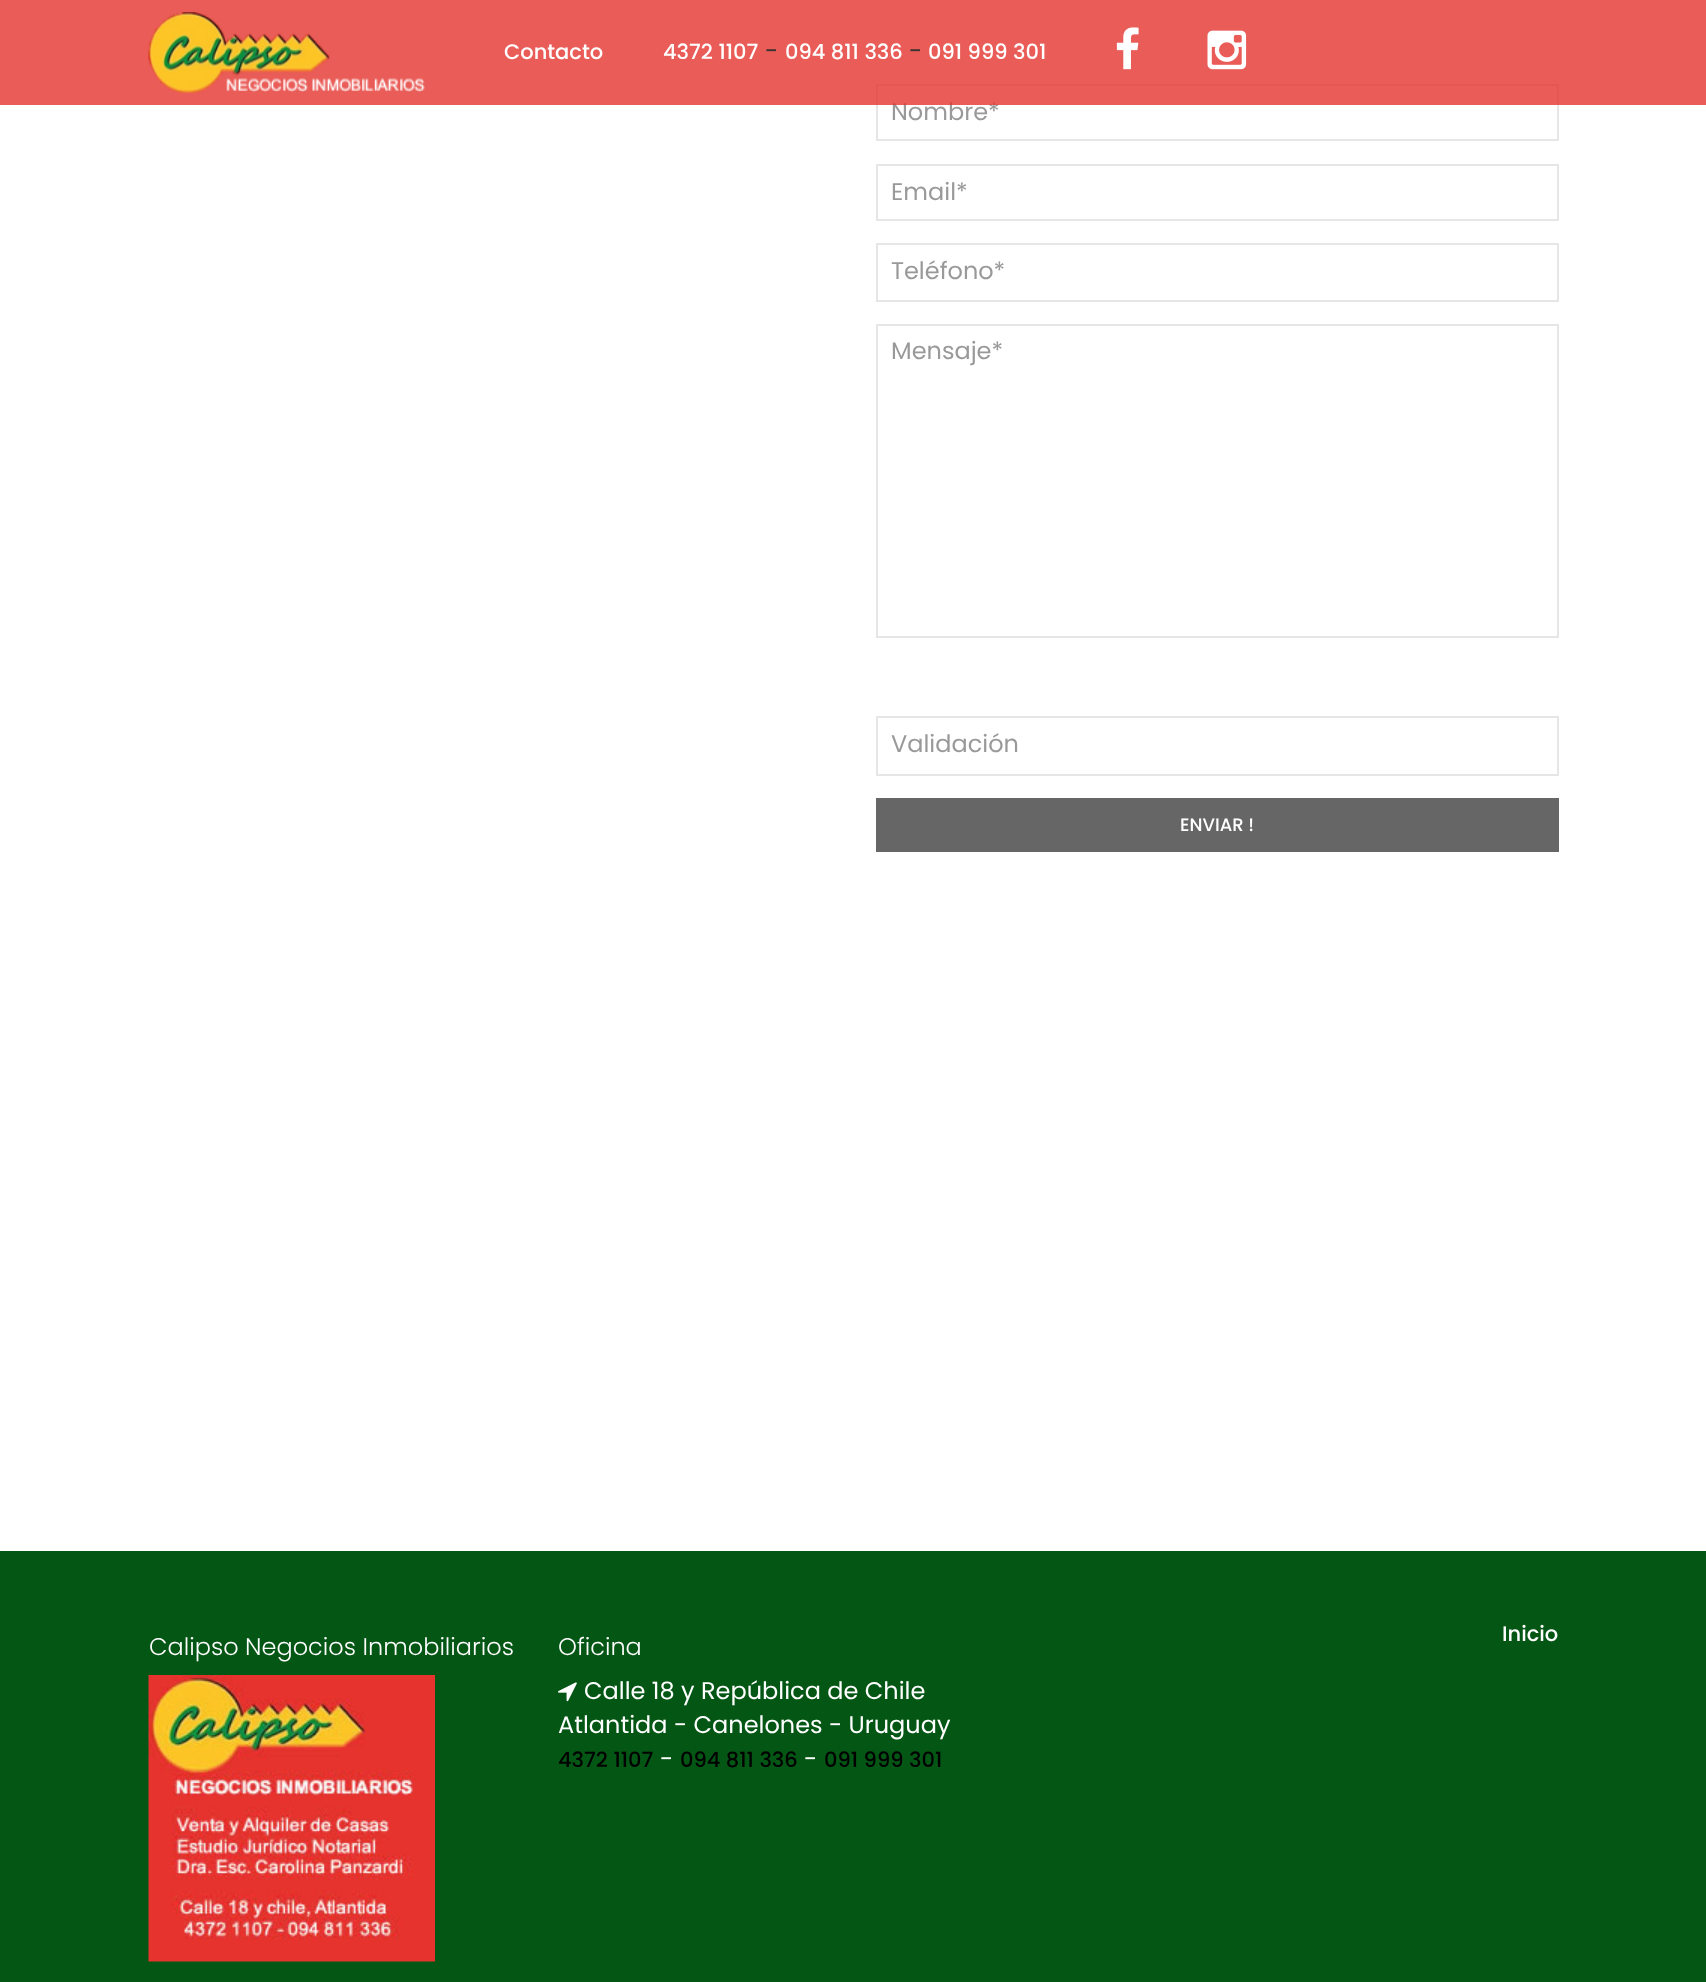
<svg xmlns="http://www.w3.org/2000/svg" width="1706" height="1982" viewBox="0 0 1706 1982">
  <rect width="100%" height="100%" fill="#ffffff"/>
  <rect x="877" y="85" width="681" height="55" fill="none" stroke="#e6e6e6" stroke-width="2"/>
  <text x="891" y="120" font-family="Poppins" font-size="24" fill="#999999">Nombre*</text>
  <rect x="0" y="0" width="1706" height="105" fill="#e4332d" fill-opacity="0.8"/>
  <image x="148" y="12" width="277" height="81" href="img1.png"/>
  <text x="504" y="59" font-family="Poppins" font-size="21" font-weight="500" fill="#ffffff">Contacto</text>
  <text x="663" y="59" font-family="Poppins" font-size="21" font-weight="500" fill="#ffffff">4372 1107</text>
  <text x="765" y="59" font-family="Poppins" font-size="24" fill="#323232">-</text>
  <text x="785" y="59" font-family="Poppins" font-size="21" font-weight="500" fill="#ffffff">094 811 336</text>
  <text x="909" y="59" font-family="Poppins" font-size="24" fill="#323232">-</text>
  <text x="928" y="59" font-family="Poppins" font-size="21" font-weight="500" fill="#ffffff">091 999 301</text>
  <image x="1116" y="27" width="23" height="43" href="img2.png"/>
  <image x="1207" y="30" width="40" height="40" href="img3.png"/>
  <rect x="877" y="165" width="681" height="55" fill="none" stroke="#e6e6e6" stroke-width="2"/>
  <text x="891" y="200" font-family="Poppins" font-size="24" fill="#999999">Email*</text>
  <rect x="877" y="244" width="681" height="57" fill="none" stroke="#e6e6e6" stroke-width="2"/>
  <text x="891" y="279" font-family="Poppins" font-size="24" fill="#999999">Teléfono*</text>
  <rect x="877" y="325" width="681" height="312" fill="none" stroke="#e6e6e6" stroke-width="2"/>
  <text x="891" y="359" font-family="Poppins" font-size="24" fill="#999999">Mensaje*</text>
  <rect x="877" y="717" width="681" height="58" fill="none" stroke="#e6e6e6" stroke-width="2"/>
  <text x="891" y="752" font-family="Poppins" font-size="24" fill="#999999">Validación</text>
  <rect x="876" y="798" width="683" height="54" fill="#666666"/>
  <text x="1180" y="831" font-family="Poppins" font-size="18" font-weight="500" fill="#ffffff">ENVIAR !</text>
  <rect x="0" y="1551" width="1706" height="431" fill="#045614"/>
  <text x="1502" y="1641" font-family="Poppins" font-size="21" font-weight="500" fill="#ffffff">Inicio</text>
  <text x="149" y="1655" font-family="Poppins" font-size="24" font-weight="300" fill="#ffffff">Calipso Negocios Inmobiliarios</text>
  <image x="148" y="1675" width="287" height="287" href="img4.png"/>
  <text x="558" y="1655" font-family="Poppins" font-size="24" font-weight="300" fill="#ffffff">Oficina</text>
  <image x="558" y="1682" width="19" height="20" href="img5.png"/>
  <text x="584" y="1699" font-family="Poppins" font-size="24" fill="#ffffff">Calle 18 y República de Chile</text>
  <text x="558" y="1733" font-family="Poppins" font-size="24" fill="#ffffff">Atlantida - Canelones - Uruguay</text>
  <text x="558" y="1767" font-family="Poppins" font-size="21" font-weight="500" fill="#000000">4372 1107</text>
  <text x="660" y="1767" font-family="Poppins" font-size="24" fill="#ffffff">-</text>
  <text x="680" y="1767" font-family="Poppins" font-size="21" font-weight="500" fill="#000000">094 811 336</text>
  <text x="804" y="1767" font-family="Poppins" font-size="24" fill="#ffffff">-</text>
  <text x="824" y="1767" font-family="Poppins" font-size="21" font-weight="500" fill="#000000">091 999 301</text>
</svg>
